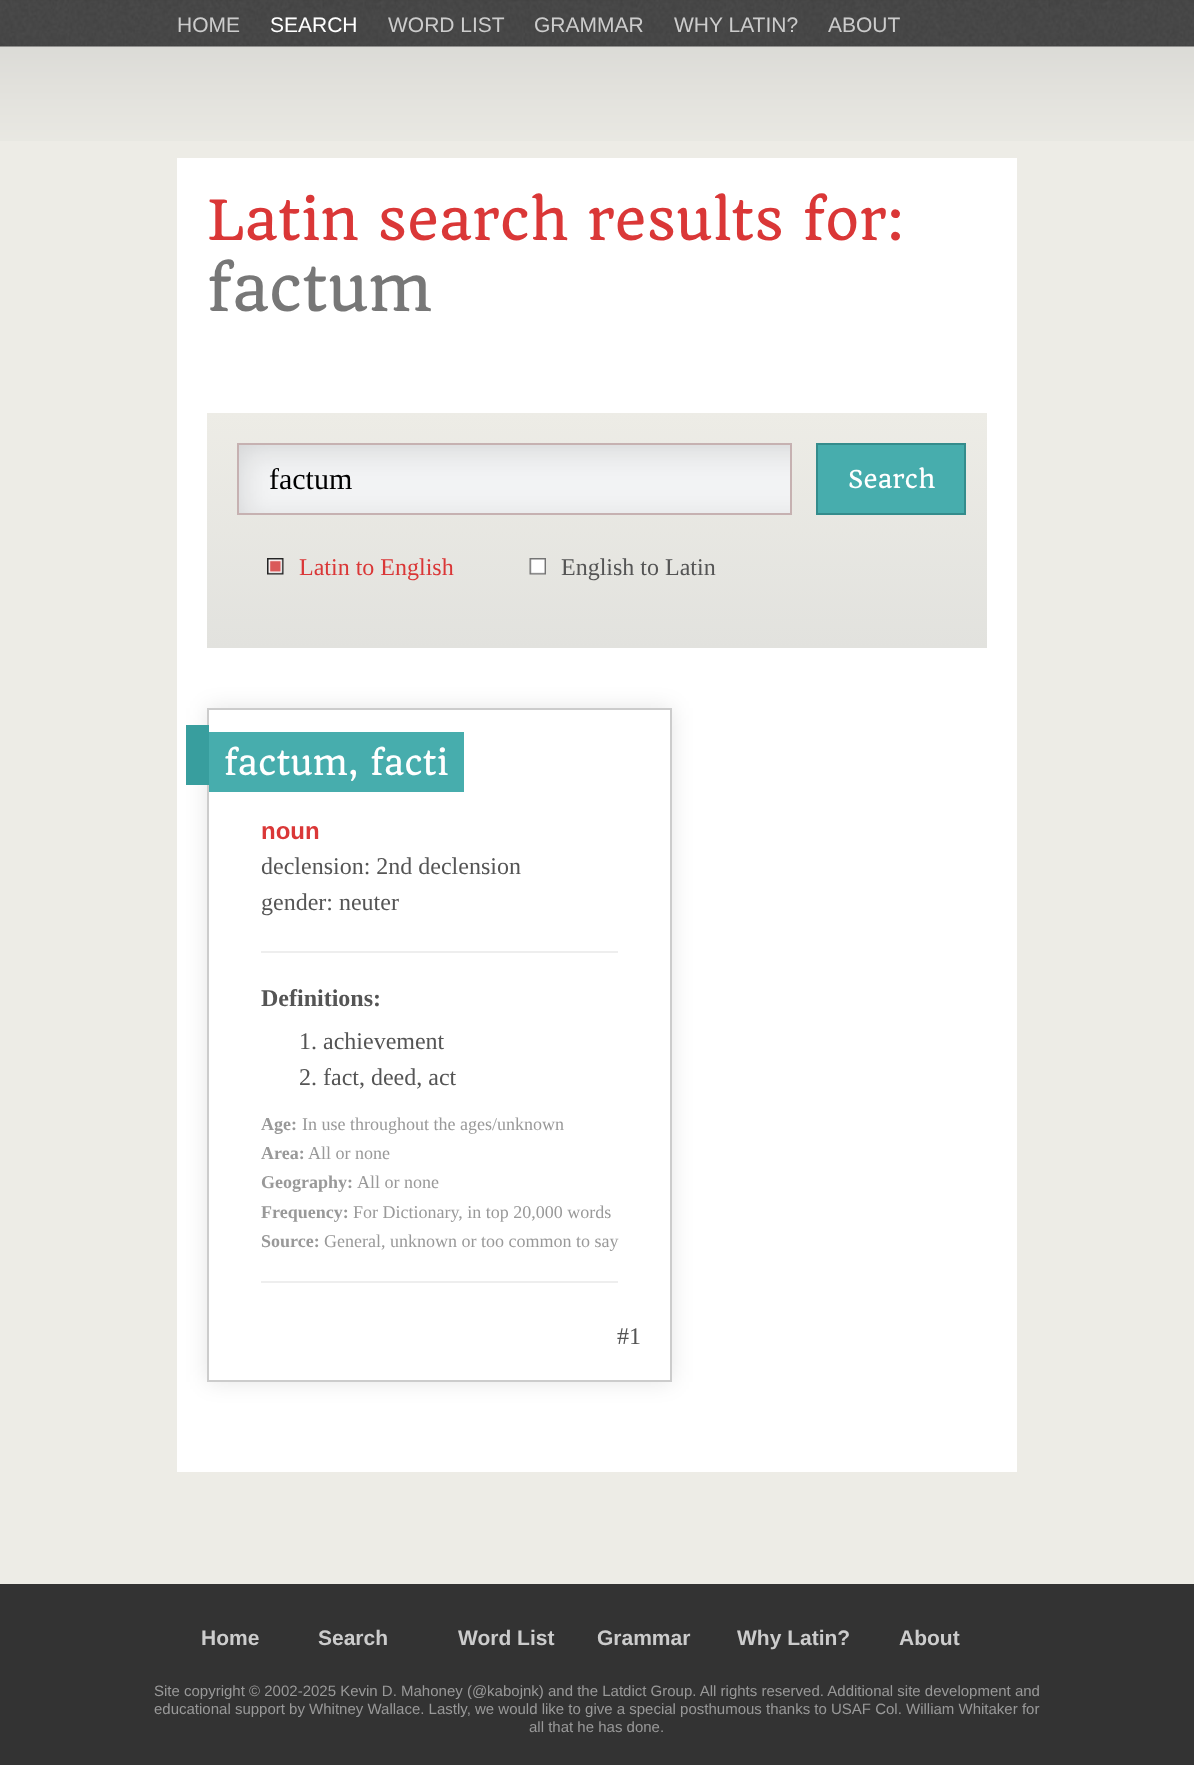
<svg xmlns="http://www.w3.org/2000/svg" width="1194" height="1765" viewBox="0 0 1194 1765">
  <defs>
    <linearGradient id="g1" gradientUnits="userSpaceOnUse" x1="597" y1="413" x2="597" y2="648"><stop offset="0" stop-color="#edece6"/><stop offset="1" stop-color="#e2e2de"/></linearGradient>
    <filter id="blur1" x="-50%" y="-200%" width="200%" height="500%"><feGaussianBlur stdDeviation="11"/></filter>
  </defs>
  <rect width="100%" height="100%" fill="#333333"/>
  <image x="0" y="0" width="1194" height="45" href="img1.png"/>
  <text x="177" y="32" font-family="Liberation Sans" font-size="21" fill="#cccccc">HOME</text>
  <text x="270" y="32" font-family="Liberation Sans" font-size="21" fill="#ffffff">SEARCH</text>
  <text x="388" y="32" font-family="Liberation Sans" font-size="21" fill="#cccccc">WORD LIST</text>
  <text x="534" y="32" font-family="Liberation Sans" font-size="21" fill="#cccccc">GRAMMAR</text>
  <text x="674" y="32" font-family="Liberation Sans" font-size="21" fill="#cccccc">WHY LATIN?</text>
  <text x="828" y="32" font-family="Liberation Sans" font-size="21" fill="#cccccc">ABOUT</text>
  <rect x="0" y="141" width="1194" height="1443" fill="#edece6"/>
  <image x="0" y="45" width="1194" height="96" href="img2.png"/>
  <rect x="177" y="158" width="840" height="1314" fill="#ffffff"/>
  <text x="207" y="240" font-family="Quando" font-size="54" fill="#da3737">Latin search results for:</text>
  <text x="207" y="311" font-family="Quando" font-size="60" fill="#777777">factum</text>
  <rect x="207" y="413" width="780" height="235" fill="url(#g1)"/>
  <image x="239" y="445" width="551" height="68" href="img3.png"/>
  <rect x="238" y="444" width="553" height="70" fill="none" stroke="#c6b1b1" stroke-width="2"/>
  <text x="269" y="489" font-family="Liberation Serif" font-size="30" fill="#000000">factum</text>
  <rect x="817" y="444" width="148" height="70" fill="#47adad" stroke="#348c8c" stroke-width="2"/>
  <text x="848" y="488" font-family="Quando" font-size="24" fill="#ffffff">Search</text>
  <image x="267" y="558" width="17" height="17" href="img4.png"/>
  <text x="299" y="575" font-family="Liberation Serif" font-size="24" fill="#da3737">Latin to English</text>
  <image x="529" y="558" width="17" height="17" href="img5.png"/>
  <text x="561" y="575" font-family="Liberation Serif" font-size="24" fill="#555555">English to Latin</text>
  <rect x="207" y="708" width="465" height="674" fill="#000000" fill-opacity="0.1" filter="url(#blur1)"/>
  <rect x="208" y="709" width="463" height="672" fill="#ffffff" stroke="#cccccc" stroke-width="2"/>
  <rect x="209" y="732" width="255" height="60" fill="#47adad"/>
  <rect x="186" y="725" width="23" height="60" fill="#389e9e"/>
  <text x="224" y="775" font-family="Quando" font-size="33" fill="#ffffff">factum, facti</text>
  <text x="261" y="839" font-family="Liberation Sans" font-size="24" font-weight="bold" fill="#da3737">noun</text>
  <text x="261" y="874" font-family="Liberation Serif" font-size="24" fill="#555555">declension: 2nd declension</text>
  <text x="261" y="910" font-family="Liberation Serif" font-size="24" fill="#555555">gender: neuter</text>
  <rect x="261" y="951" width="357" height="2" fill="#eeeeee"/>
  <rect x="261" y="1281" width="357" height="2" fill="#eeeeee"/>
  <text x="261" y="1006" font-family="Liberation Serif" font-size="24" font-weight="bold" fill="#555555">Definitions:</text>
  <text x="299" y="1049" font-family="Liberation Serif" font-size="24" fill="#555555">1. achievement</text>
  <text x="299" y="1085" font-family="Liberation Serif" font-size="24" fill="#555555">2. fact, deed, act</text>
  <text x="261" y="1130" font-family="Liberation Serif" font-size="18" font-weight="bold" fill="#999999">Age:</text>
  <text x="302" y="1130" font-family="Liberation Serif" font-size="18" fill="#999999">In use throughout the ages/unknown</text>
  <text x="261" y="1159" font-family="Liberation Serif" font-size="18" font-weight="bold" fill="#999999">Area:</text>
  <text x="308" y="1159" font-family="Liberation Serif" font-size="18" fill="#999999">All or none</text>
  <text x="261" y="1188" font-family="Liberation Serif" font-size="18" font-weight="bold" fill="#999999">Geography:</text>
  <text x="357" y="1188" font-family="Liberation Serif" font-size="18" fill="#999999">All or none</text>
  <text x="261" y="1218" font-family="Liberation Serif" font-size="18" font-weight="bold" fill="#999999">Frequency:</text>
  <text x="353" y="1218" font-family="Liberation Serif" font-size="18" fill="#999999">For Dictionary, in top 20,000 words</text>
  <text x="261" y="1247" font-family="Liberation Serif" font-size="18" font-weight="bold" fill="#999999">Source:</text>
  <text x="324" y="1247" font-family="Liberation Serif" font-size="18" fill="#999999">General, unknown or too common to say</text>
  <text x="617" y="1344" font-family="Liberation Serif" font-size="24" fill="#555555">#1</text>
  <text x="201" y="1645" font-family="Liberation Sans" font-size="21" font-weight="bold" fill="#cccccc">Home</text>
  <text x="318" y="1645" font-family="Liberation Sans" font-size="21" font-weight="bold" fill="#cccccc">Search</text>
  <text x="458" y="1645" font-family="Liberation Sans" font-size="21" font-weight="bold" fill="#cccccc">Word List</text>
  <text x="597" y="1645" font-family="Liberation Sans" font-size="21" font-weight="bold" fill="#cccccc">Grammar</text>
  <text x="737" y="1645" font-family="Liberation Sans" font-size="21" font-weight="bold" fill="#cccccc">Why Latin?</text>
  <text x="899" y="1645" font-family="Liberation Sans" font-size="21" font-weight="bold" fill="#cccccc">About</text>
  <text x="154" y="1696" font-family="Liberation Sans" font-size="15" fill="#999999">Site copyright © 2002-2025 Kevin D. Mahoney (@kabojnk) and the Latdict Group. All rights reserved. Additional site development and</text>
  <text x="154" y="1714" font-family="Liberation Sans" font-size="15" fill="#999999">educational support by Whitney Wallace. Lastly, we would like to give a special posthumous thanks to USAF Col. William Whitaker for</text>
  <text x="529" y="1732" font-family="Liberation Sans" font-size="15" fill="#999999">all that he has done.</text>
</svg>
